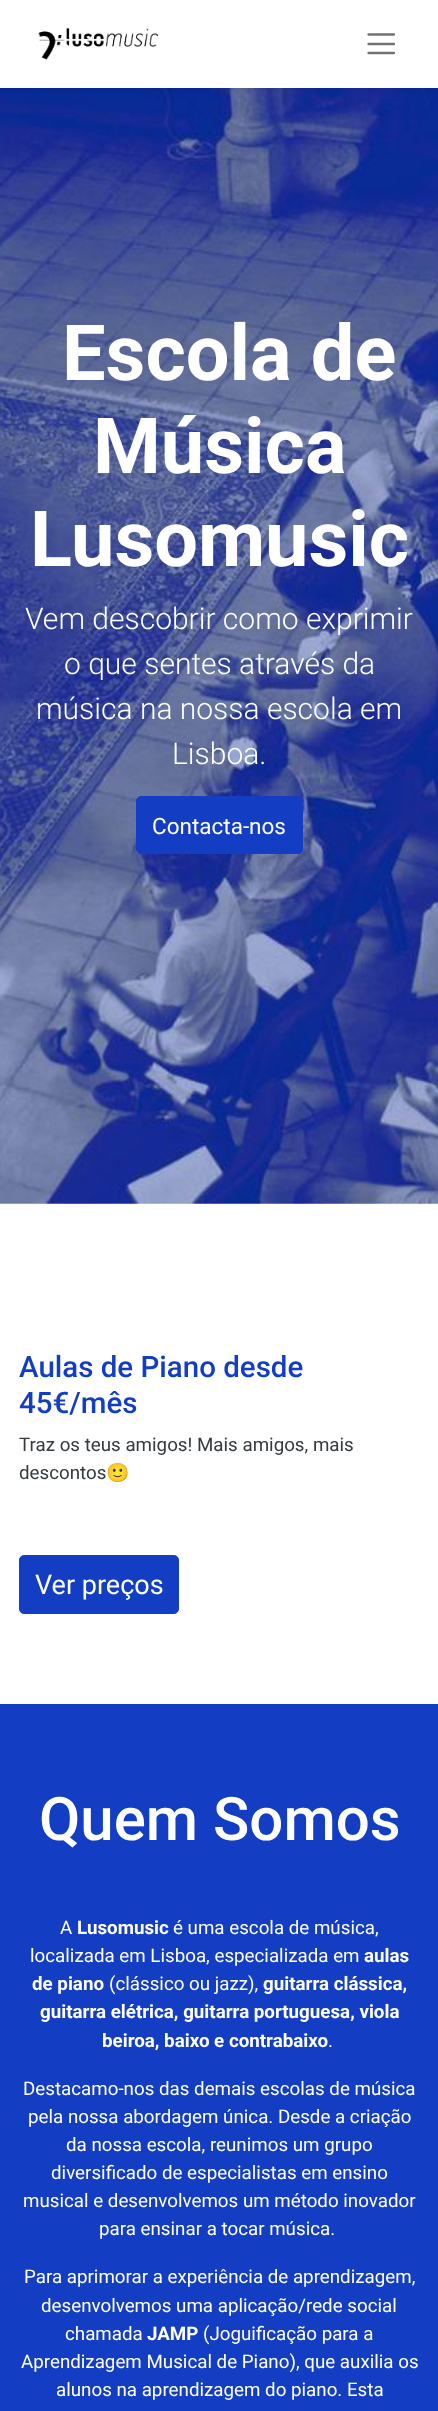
<svg xmlns="http://www.w3.org/2000/svg" width="438" height="2411" viewBox="0 0 438 2411">
  <defs>
    <filter id="blur1" x="-50%" y="-200%" width="200%" height="500%"><feGaussianBlur stdDeviation="2.5"/></filter>
  </defs>
  <rect width="100%" height="100%" fill="#ffffff"/>
  <image x="0" y="88" width="438" height="1116" href="img2.png"/>
  <rect x="0" y="3" width="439" height="87" fill="#000000" fill-opacity="0.07" filter="url(#blur1)"/>
  <rect x="0" y="0" width="438" height="88" fill="#ffffff"/>
  <image x="38" y="28" width="121" height="32" href="img1.png"/>
  <path d="M368.5 34.5H394M368.5 44H394M368.5 53H394" fill="none" stroke="#737373" stroke-width="2.3" stroke-linecap="round"/>
  <text x="62" y="380" font-family="Roboto" font-size="77.5" font-weight="bold" fill="#ffffff">Escola de</text>
  <text x="93" y="473" font-family="Roboto" font-size="77.5" font-weight="bold" fill="#ffffff">Música</text>
  <text x="30" y="566" font-family="Roboto" font-size="77.5" font-weight="bold" fill="#ffffff">Lusomusic</text>
  <text x="25" y="629" font-family="Roboto" font-size="30" font-weight="300" fill="#ffffff">Vem descobrir como exprimir</text>
  <text x="64" y="674" font-family="Roboto" font-size="30" font-weight="300" fill="#ffffff">o que sentes através da</text>
  <text x="36" y="719" font-family="Roboto" font-size="30" font-weight="300" fill="#ffffff">música na nossa escola em</text>
  <text x="172" y="764" font-family="Roboto" font-size="30" font-weight="300" fill="#ffffff">Lisboa.</text>
  <rect x="136.5" y="796.5" width="166" height="57" rx="4.5" fill="#133ec3" stroke="#133ec3"/>
  <text x="152" y="834" font-family="Roboto" font-size="22.5" fill="#ffffff">Contacta-nos</text>
  <text x="19" y="1377" font-family="Roboto" font-size="29.5" font-weight="500" fill="#133ec3">Aulas de Piano desde</text>
  <text x="19" y="1413" font-family="Roboto" font-size="29.5" font-weight="500" fill="#133ec3">45€/mês</text>
  <text x="19" y="1451" font-family="Roboto" font-size="18.75" fill="#343a40">Traz os teus amigos! Mais amigos, mais</text>
  <text x="19" y="1479" font-family="Roboto" font-size="18.75" fill="#343a40">descontos</text>
  <text x="106" y="1479" font-family="Noto Color Emoji" font-size="18.75" fill="#212529">🙂</text>
  <rect x="19.5" y="1555.5" width="159" height="58" rx="4.5" fill="#133ec3" stroke="#133ec3"/>
  <text x="35" y="1594" font-family="Roboto" font-size="27" fill="#ffffff">Ver preços</text>
  <rect x="0" y="1704" width="438" height="707" fill="#133ec3"/>
  <text x="39" y="1840" font-family="Roboto" font-size="60" font-weight="500" fill="#ffffff">Quem Somos</text>
  <text x="60" y="1934" font-family="Roboto" font-size="18.75" fill="#ffffff">A</text>
  <text x="77" y="1934" font-family="Roboto" font-size="18.75" font-weight="bold" fill="#ffffff">Lusomusic</text>
  <text x="173" y="1934" font-family="Roboto" font-size="18.75" fill="#ffffff">é uma escola de música,</text>
  <text x="30" y="1962" font-family="Roboto" font-size="18.75" fill="#ffffff">localizada em Lisboa, especializada em</text>
  <text x="364" y="1962" font-family="Roboto" font-size="18.75" font-weight="bold" fill="#ffffff">aulas</text>
  <text x="32" y="1990" font-family="Roboto" font-size="18.75" font-weight="bold" fill="#ffffff">de piano</text>
  <text x="109" y="1990" font-family="Roboto" font-size="18.75" fill="#ffffff">(clássico ou jazz),</text>
  <text x="263" y="1990" font-family="Roboto" font-size="18.75" font-weight="bold" fill="#ffffff">guitarra clássica,</text>
  <text x="40" y="2018" font-family="Roboto" font-size="18.75" font-weight="bold" fill="#ffffff">guitarra elétrica, guitarra portuguesa, viola</text>
  <text x="102" y="2047" font-family="Roboto" font-size="18.75" font-weight="bold" fill="#ffffff">beiroa, baixo e contrabaixo</text>
  <text x="328" y="2047" font-family="Roboto" font-size="18.75" fill="#ffffff">.</text>
  <text x="23" y="2095" font-family="Roboto" font-size="18.75" fill="#ffffff">Destacamo-nos das demais escolas de música</text>
  <text x="28" y="2123" font-family="Roboto" font-size="18.75" fill="#ffffff">pela nossa abordagem única. Desde a criação</text>
  <text x="66" y="2151" font-family="Roboto" font-size="18.75" fill="#ffffff">da nossa escola, reunimos um grupo</text>
  <text x="51" y="2179" font-family="Roboto" font-size="18.75" fill="#ffffff">diversificado de especialistas em ensino</text>
  <text x="23" y="2207" font-family="Roboto" font-size="18.75" fill="#ffffff">musical e desenvolvemos um método inovador</text>
  <text x="99" y="2235" font-family="Roboto" font-size="18.75" fill="#ffffff">para ensinar a tocar música.</text>
  <text x="24" y="2283" font-family="Roboto" font-size="18.75" fill="#ffffff">Para aprimorar a experiência de aprendizagem,</text>
  <text x="41" y="2312" font-family="Roboto" font-size="18.75" fill="#ffffff">desenvolvemos uma aplicação/rede social</text>
  <text x="65" y="2340" font-family="Roboto" font-size="18.75" fill="#ffffff">chamada</text>
  <text x="147" y="2340" font-family="Roboto" font-size="18.75" font-weight="bold" fill="#ffffff">JAMP</text>
  <text x="203" y="2340" font-family="Roboto" font-size="18.75" fill="#ffffff">(Joguificação para a</text>
  <text x="21" y="2368" font-family="Roboto" font-size="18.75" fill="#ffffff">Aprendizagem Musical de Piano), que auxilia os</text>
  <text x="56" y="2396" font-family="Roboto" font-size="18.75" fill="#ffffff">alunos na aprendizagem do piano. Esta</text>
</svg>
